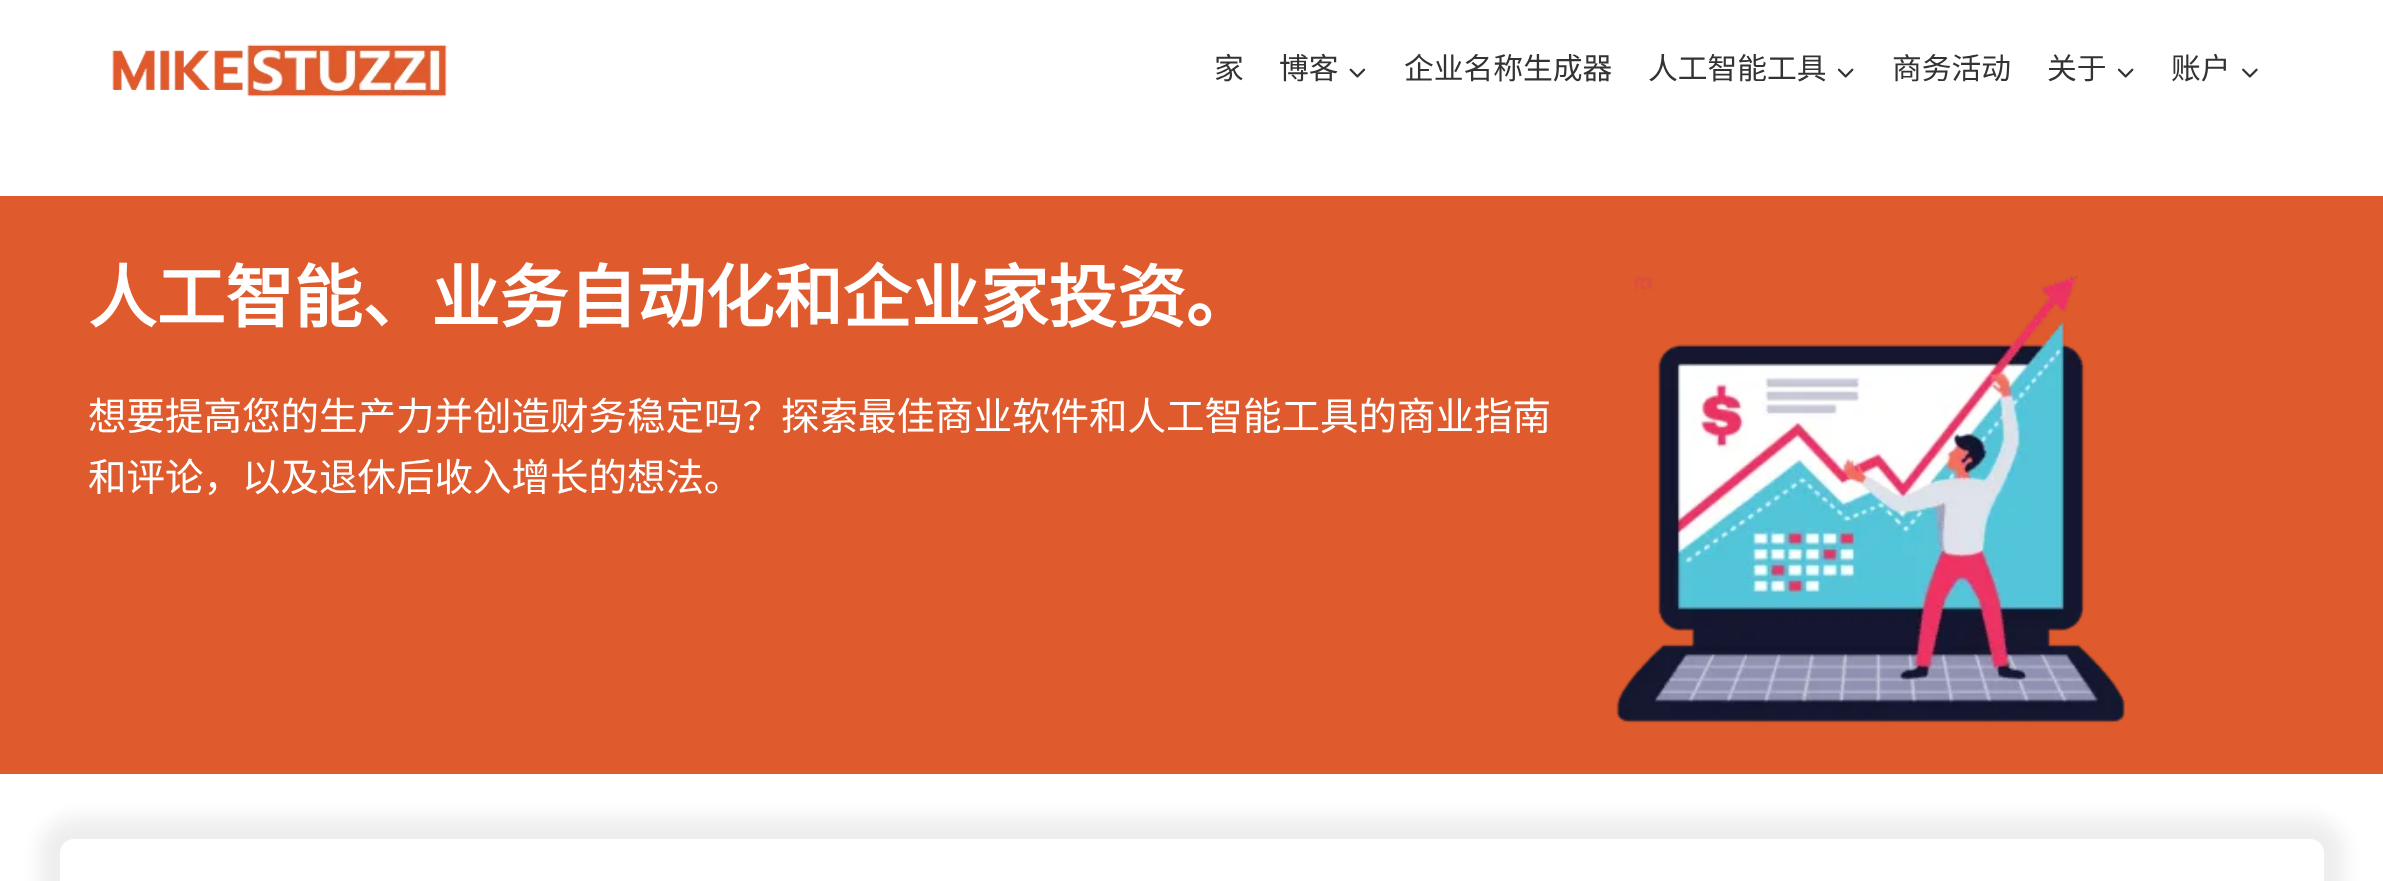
<svg xmlns="http://www.w3.org/2000/svg" width="2383" height="881" viewBox="0 0 2383 881">
  <defs>
    <filter id="blur1" x="-50%" y="-200%" width="200%" height="500%"><feGaussianBlur stdDeviation="9"/></filter>
  </defs>
  <rect width="100%" height="100%" fill="#ffffff"/>
  <image x="112" y="44" width="335" height="53" href="img1.png"/>
  <text x="1214" y="79" font-family="Noto Sans CJK SC" font-size="29.75" fill="#333333">家</text>
  <text x="1279" y="79" font-family="Noto Sans CJK SC" font-size="29.75" fill="#333333">博客</text>
  <image x="1349" y="68" width="17" height="10" href="img2.png"/>
  <text x="1404" y="79" font-family="Noto Sans CJK SC" font-size="29.75" fill="#333333">企业名称生成器</text>
  <text x="1648" y="79" font-family="Noto Sans CJK SC" font-size="29.75" fill="#333333">人工智能工具</text>
  <image x="1837" y="68" width="17" height="10" href="img3.png"/>
  <text x="1892" y="79" font-family="Noto Sans CJK SC" font-size="29.75" fill="#333333">商务活动</text>
  <text x="2047" y="79" font-family="Noto Sans CJK SC" font-size="29.75" fill="#333333">关于</text>
  <image x="2117" y="68" width="17" height="10" href="img3.png"/>
  <text x="2171" y="79" font-family="Noto Sans CJK SC" font-size="29.75" fill="#333333">账户</text>
  <image x="2242" y="68" width="16" height="10" href="img4.png"/>
  <rect x="0" y="196" width="2383" height="578" fill="#df5b2e"/>
  <text x="88" y="322" font-family="Noto Sans CJK SC" font-size="68.6" font-weight="bold" fill="#ffffff">人工智能、业务自动化和企业家投资。</text>
  <text x="88" y="430" font-family="Noto Sans CJK SC" font-size="38.5" fill="#ffffff">想要提高您的生产力并创造财务稳定吗？探索最佳商业软件和人工智能工具的商业指南</text>
  <text x="88" y="491" font-family="Noto Sans CJK SC" font-size="38.5" fill="#ffffff">和评论，以及退休后收入增长的想法。</text>
  <image x="1616" y="276" width="509" height="447" href="img5.png"/>
  <rect x="39" y="817" width="2306" height="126" rx="35" fill="#eeeeee" filter="url(#blur1)"/>
  <rect x="58" y="837" width="2268" height="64" rx="16" fill="#ffffff" stroke="#eeeeee" stroke-width="4"/>
</svg>
